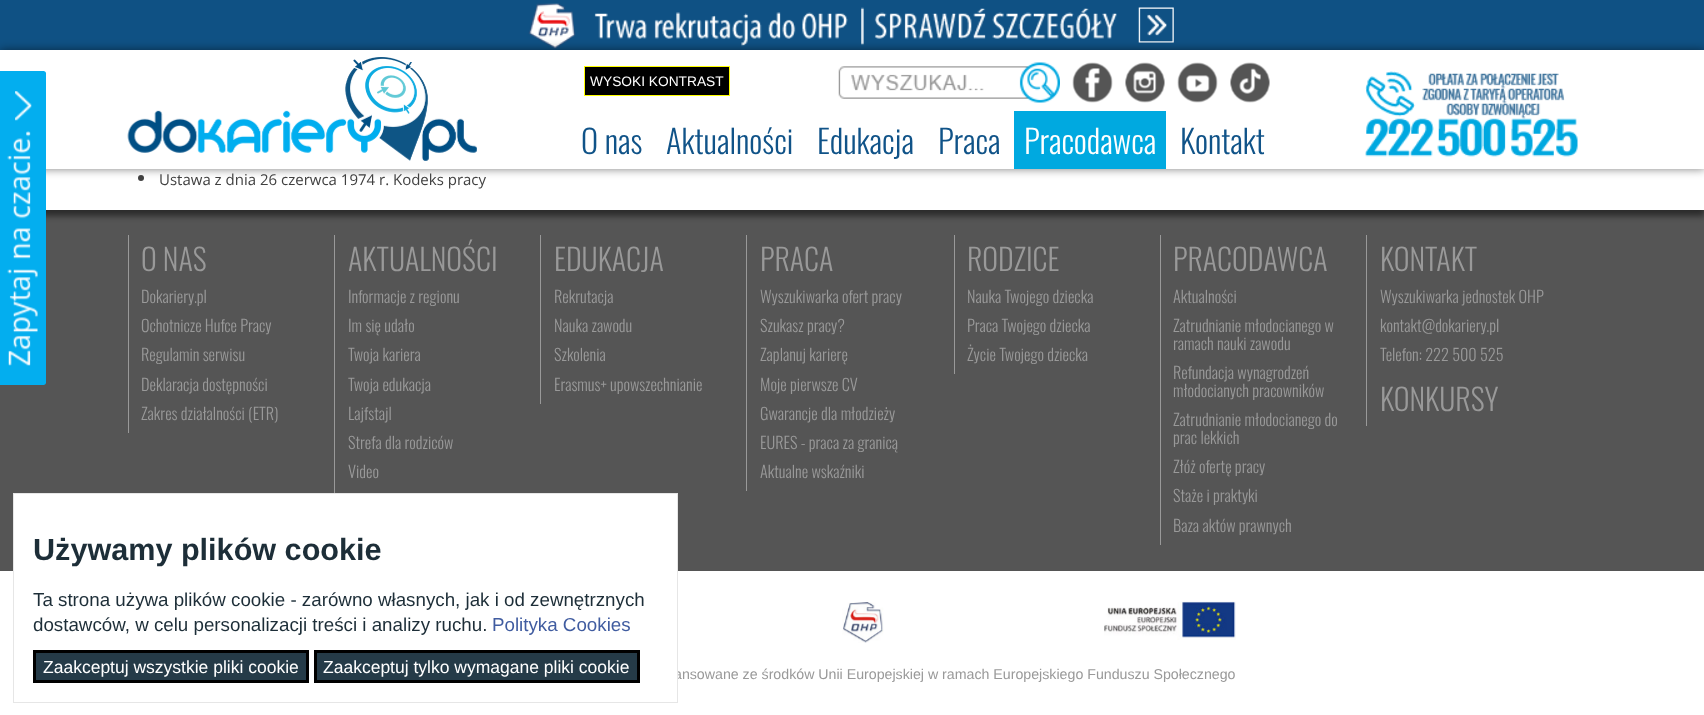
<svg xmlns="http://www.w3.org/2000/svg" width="1704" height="715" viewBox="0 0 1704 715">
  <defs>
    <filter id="blur1" x="-50%" y="-200%" width="200%" height="500%"><feGaussianBlur stdDeviation="3"/></filter>
    <filter id="blur2" x="-50%" y="-200%" width="200%" height="500%"><feGaussianBlur stdDeviation="5"/></filter>
  </defs>
  <rect width="100%" height="100%" fill="#555555"/>
  <rect x="0" y="-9" width="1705" height="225" fill="#000000" fill-opacity="0.5" filter="url(#blur1)"/>
  <rect x="0" y="0" width="1704" height="50" fill="#0f5184"/>
  <image x="528" y="3" width="646" height="46" href="img1.png"/>
  <rect x="46" y="169" width="1658" height="41" fill="#ffffff"/>
  <circle cx="141" cy="178" r="3" fill="#404040"/>
  <rect x="0" y="50" width="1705" height="119" fill="#000000" fill-opacity="0.5" filter="url(#blur2)"/>
  <rect x="0" y="50" width="1704" height="119" fill="#ffffff"/>
  <path d="M0 71H43.5C45 71 46 72 46 73.5V382.5C46 384 45 385 43.5 385H0Z" fill="#03aeef"/>
  <image x="15" y="91" width="17" height="30" href="img2.png"/>
  <image x="7" y="131" width="31" height="235" href="img3.png"/>
  <image x="838" y="62" width="222" height="41" href="img4.png"/>
  <image x="127" y="57" width="350" height="104" href="img5.png"/>
  <rect x="584.5" y="66.5" width="145" height="29" fill="#000000" stroke="#ffff00"/>
  <text x="590" y="86" font-family="Liberation Sans" font-size="13.75" fill="#ffffff">WYSOKI KONTRAST</text>
  <image x="1072" y="62" width="41" height="41" href="img6.png"/>
  <image x="1125" y="62" width="40" height="41" href="img7.png"/>
  <image x="1177" y="62" width="41" height="41" href="img8.png"/>
  <image x="1230" y="62" width="40" height="41" href="img9.png"/>
  <image x="1365" y="71" width="213" height="86" href="img10.png"/>
  <text x="581" y="154" font-family="Oswald" font-size="32.5" font-weight="300" fill="#105388">O nas</text>
  <text x="666" y="154" font-family="Oswald" font-size="32.5" font-weight="300" fill="#105388">Aktualności</text>
  <text x="817" y="154" font-family="Oswald" font-size="32.5" font-weight="300" fill="#105388">Edukacja</text>
  <text x="938" y="154" font-family="Oswald" font-size="32.5" font-weight="300" fill="#105388">Praca</text>
  <rect x="1014" y="111" width="152" height="58" fill="#00a9e0"/>
  <text x="1024" y="154" font-family="Oswald" font-size="32.5" font-weight="300" fill="#ffffff">Pracodawca</text>
  <text x="1180" y="154" font-family="Oswald" font-size="32.5" font-weight="300" fill="#105388">Kontakt</text>
  <text x="159" y="185" font-family="Open Sans" font-size="15" fill="#404040">Ustawa z dnia 26 czerwca 1974 r. Kodeks pracy</text>
  <rect x="128" y="235" width="1" height="198" fill="#999999"/>
  <text x="141" y="271" font-family="Oswald" font-size="30" font-weight="300" fill="#999999">O NAS</text>
  <text x="141" y="303" font-family="Oswald" font-size="16.25" font-weight="300" fill="#999999">Dokariery.pl</text>
  <text x="141" y="332" font-family="Oswald" font-size="16.25" font-weight="300" fill="#999999">Ochotnicze Hufce Pracy</text>
  <text x="141" y="361" font-family="Oswald" font-size="16.25" font-weight="300" fill="#999999">Regulamin serwisu</text>
  <text x="141" y="391" font-family="Oswald" font-size="16.25" font-weight="300" fill="#999999">Deklaracja dostępności</text>
  <text x="141" y="420" font-family="Oswald" font-size="16.25" font-weight="300" fill="#999999">Zakres działalności (ETR)</text>
  <rect x="334" y="235" width="1" height="258" fill="#999999"/>
  <text x="348" y="271" font-family="Oswald" font-size="30" font-weight="300" fill="#999999">AKTUALNOŚCI</text>
  <text x="348" y="303" font-family="Oswald" font-size="16.25" font-weight="300" fill="#999999">Informacje z regionu</text>
  <text x="348" y="332" font-family="Oswald" font-size="16.25" font-weight="300" fill="#999999">Im się udało</text>
  <text x="348" y="361" font-family="Oswald" font-size="16.25" font-weight="300" fill="#999999">Twoja kariera</text>
  <text x="348" y="391" font-family="Oswald" font-size="16.25" font-weight="300" fill="#999999">Twoja edukacja</text>
  <text x="348" y="420" font-family="Oswald" font-size="16.25" font-weight="300" fill="#999999">Lajfstajl</text>
  <text x="348" y="449" font-family="Oswald" font-size="16.25" font-weight="300" fill="#999999">Strefa dla rodziców</text>
  <text x="348" y="478" font-family="Oswald" font-size="16.25" font-weight="300" fill="#999999">Video</text>
  <rect x="540" y="235" width="1" height="169" fill="#999999"/>
  <text x="554" y="271" font-family="Oswald" font-size="30" font-weight="300" fill="#999999">EDUKACJA</text>
  <text x="554" y="303" font-family="Oswald" font-size="16.25" font-weight="300" fill="#999999">Rekrutacja</text>
  <text x="554" y="332" font-family="Oswald" font-size="16.25" font-weight="300" fill="#999999">Nauka zawodu</text>
  <text x="554" y="361" font-family="Oswald" font-size="16.25" font-weight="300" fill="#999999">Szkolenia</text>
  <text x="554" y="391" font-family="Oswald" font-size="16.25" font-weight="300" fill="#999999">Erasmus+ upowszechnianie</text>
  <rect x="746" y="235" width="1" height="256" fill="#999999"/>
  <text x="760" y="271" font-family="Oswald" font-size="30" font-weight="300" fill="#999999">PRACA</text>
  <text x="760" y="303" font-family="Oswald" font-size="16.25" font-weight="300" fill="#999999">Wyszukiwarka ofert pracy</text>
  <text x="760" y="332" font-family="Oswald" font-size="16.25" font-weight="300" fill="#999999">Szukasz pracy?</text>
  <text x="760" y="361" font-family="Oswald" font-size="16.25" font-weight="300" fill="#999999">Zaplanuj karierę</text>
  <text x="760" y="391" font-family="Oswald" font-size="16.25" font-weight="300" fill="#999999">Moje pierwsze CV</text>
  <text x="760" y="420" font-family="Oswald" font-size="16.25" font-weight="300" fill="#999999">Gwarancje dla młodzieży</text>
  <text x="760" y="449" font-family="Oswald" font-size="16.25" font-weight="300" fill="#999999">EURES - praca za granicą</text>
  <text x="760" y="478" font-family="Oswald" font-size="16.25" font-weight="300" fill="#999999">Aktualne wskaźniki</text>
  <rect x="954" y="235" width="1" height="139" fill="#999999"/>
  <text x="967" y="271" font-family="Oswald" font-size="30" font-weight="300" fill="#999999">RODZICE</text>
  <text x="967" y="303" font-family="Oswald" font-size="16.25" font-weight="300" fill="#999999">Nauka Twojego dziecka</text>
  <text x="967" y="332" font-family="Oswald" font-size="16.25" font-weight="300" fill="#999999">Praca Twojego dziecka</text>
  <text x="967" y="361" font-family="Oswald" font-size="16.25" font-weight="300" fill="#999999">Życie Twojego dziecka</text>
  <rect x="1160" y="235" width="1" height="310" fill="#999999"/>
  <text x="1173" y="271" font-family="Oswald" font-size="30" font-weight="300" fill="#999999">PRACODAWCA</text>
  <text x="1173" y="303" font-family="Oswald" font-size="16.25" font-weight="300" fill="#999999">Aktualności</text>
  <text x="1173" y="332" font-family="Oswald" font-size="16.25" font-weight="300" fill="#999999">Zatrudnianie młodocianego w</text>
  <text x="1173" y="350" font-family="Oswald" font-size="16.25" font-weight="300" fill="#999999">ramach nauki zawodu</text>
  <text x="1173" y="379" font-family="Oswald" font-size="16.25" font-weight="300" fill="#999999">Refundacja wynagrodzeń</text>
  <text x="1173" y="397" font-family="Oswald" font-size="16.25" font-weight="300" fill="#999999">młodocianych pracowników</text>
  <text x="1173" y="426" font-family="Oswald" font-size="16.25" font-weight="300" fill="#999999">Zatrudnianie młodocianego do</text>
  <text x="1173" y="444" font-family="Oswald" font-size="16.25" font-weight="300" fill="#999999">prac lekkich</text>
  <text x="1173" y="473" font-family="Oswald" font-size="16.25" font-weight="300" fill="#999999">Złóż ofertę pracy</text>
  <text x="1173" y="502" font-family="Oswald" font-size="16.25" font-weight="300" fill="#999999">Staże i praktyki</text>
  <text x="1173" y="532" font-family="Oswald" font-size="16.25" font-weight="300" fill="#999999">Baza aktów prawnych</text>
  <rect x="1366" y="235" width="1" height="191" fill="#999999"/>
  <text x="1380" y="271" font-family="Oswald" font-size="30" font-weight="300" fill="#999999">KONTAKT</text>
  <text x="1380" y="303" font-family="Oswald" font-size="16.25" font-weight="300" fill="#999999">Wyszukiwarka jednostek OHP</text>
  <text x="1380" y="332" font-family="Oswald" font-size="16.25" font-weight="300" fill="#999999">kontakt@dokariery.pl</text>
  <text x="1380" y="361" font-family="Oswald" font-size="16.25" font-weight="300" fill="#999999">Telefon: 222 500 525</text>
  <text x="1380" y="411" font-family="Oswald" font-size="30" font-weight="300" fill="#999999">KONKURSY</text>
  <rect x="0" y="571" width="1704" height="144" fill="#ffffff"/>
  <image x="842" y="602" width="42" height="41" href="img11.png"/>
  <image x="1104" y="601" width="132" height="39" href="img12.png"/>
  <text x="674" y="679" font-family="Liberation Sans" font-size="14.2" fill="#999999">ansowane ze środków Unii Europejskiej w ramach Europejskiego Funduszu Społecznego</text>
  <rect x="14" y="494" width="663" height="186" fill="#ffffff"/>
  <rect x="13.5" y="493.5" width="664" height="209" fill="none" stroke="#e6e6e6"/>
  <text x="33" y="560" font-family="Liberation Sans" font-size="30.6" font-weight="bold" fill="#1d2e38">Używamy plików cookie</text>
  <text x="33" y="606" font-family="Liberation Sans" font-size="18.75" fill="#1d2e38">Ta strona używa plików cookie - zarówno własnych, jak i od zewnętrznych</text>
  <text x="33" y="631" font-family="Liberation Sans" font-size="18.75" fill="#1d2e38">dostawców, w celu personalizacji treści i analizy ruchu.</text>
  <text x="492" y="631" font-family="Liberation Sans" font-size="18.75" fill="#405ca0">Polityka Cookies</text>
  <rect x="34.5" y="651.5" width="273" height="30" fill="#253b48" stroke="#000000" stroke-width="3"/>
  <text x="43" y="673" font-family="Liberation Sans" font-size="17.5" fill="#ffffff">Zaakceptuj wszystkie pliki cookie</text>
  <rect x="315.5" y="651.5" width="323" height="30" fill="#253b48" stroke="#000000" stroke-width="3"/>
  <text x="323" y="673" font-family="Liberation Sans" font-size="17.5" fill="#ffffff">Zaakceptuj tylko wymagane pliki cookie</text>
</svg>
